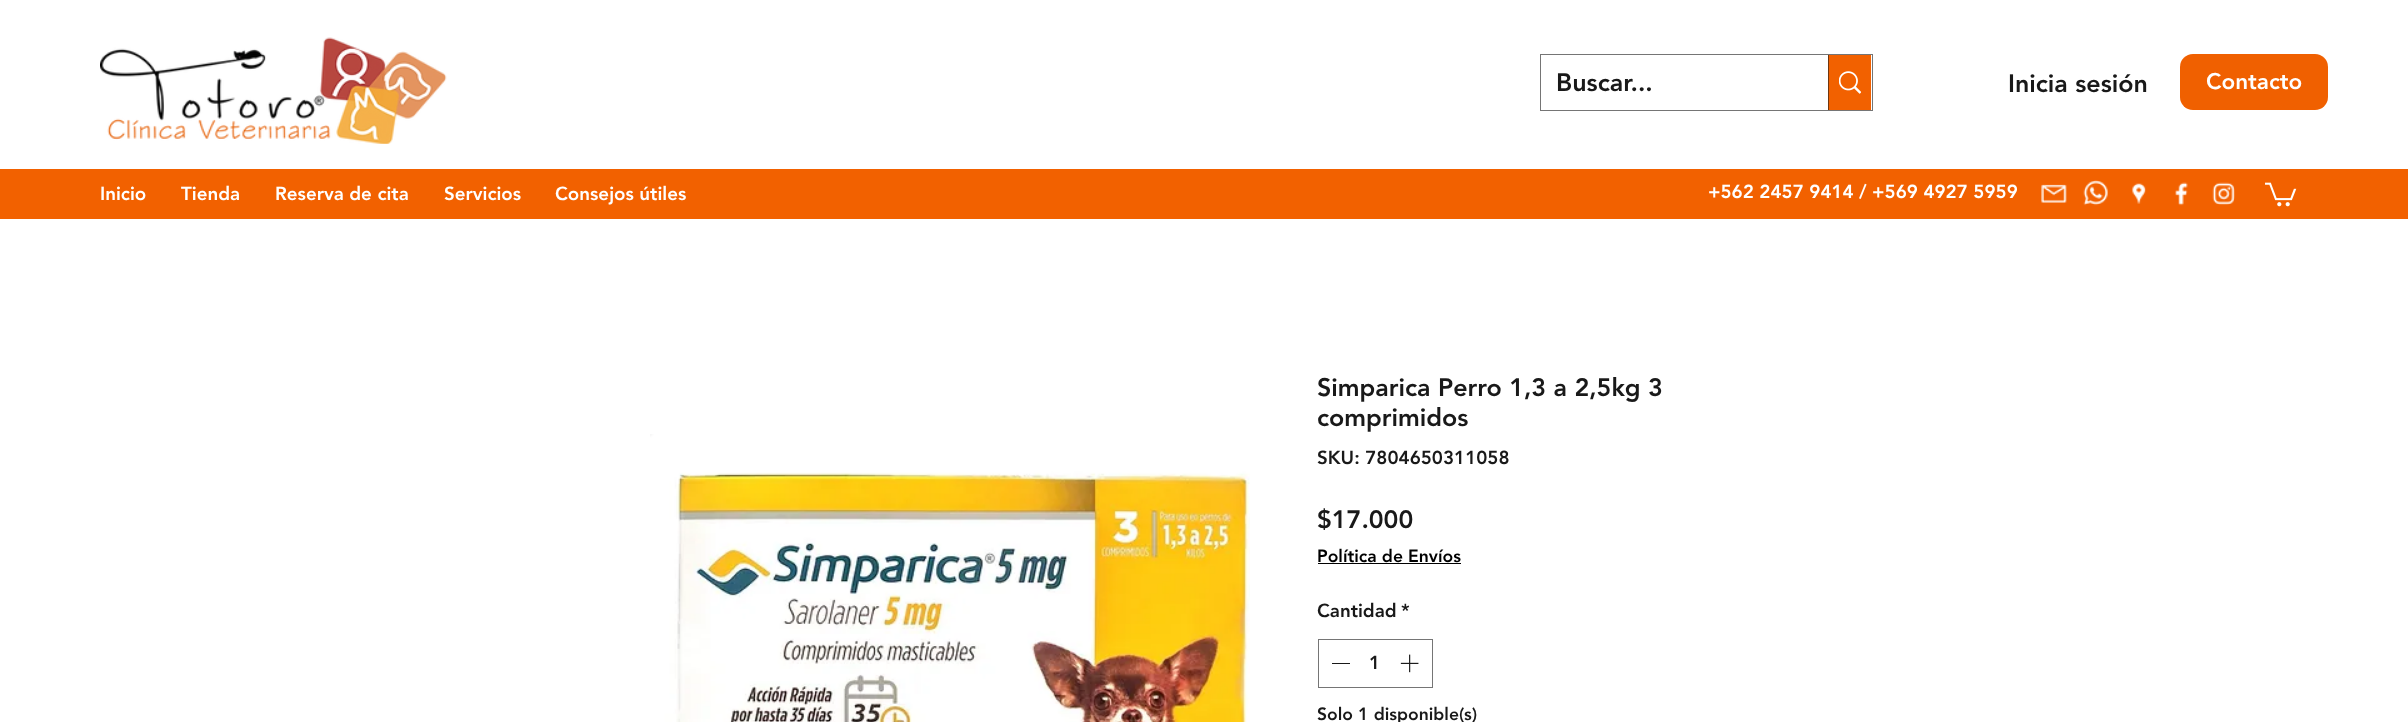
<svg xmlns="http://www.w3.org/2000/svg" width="2408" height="722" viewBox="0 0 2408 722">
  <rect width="100%" height="100%" fill="#ffffff"/>
  <image x="100" y="37" width="347" height="107" href="img1.png"/>
  <rect x="1540.5" y="54.5" width="332" height="56" fill="none" stroke="#757575"/>
  <text x="1556" y="91" font-family="'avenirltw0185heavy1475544'" font-size="25" font-weight="900" fill="#191919">Buscar...</text>
  <rect x="1829" y="55" width="42" height="55" fill="#f26100"/>
  <rect x="1828" y="55" width="1" height="55" fill="#70360f"/>
  <image x="1839" y="71" width="22" height="23" href="img2.png"/>
  <text x="2008" y="92" font-family="'avenirltw0185heavy1475544'" font-size="25" font-weight="900" fill="#191919">Inicia sesión</text>
  <rect x="2180" y="54" width="148" height="56" rx="13" fill="#f06000"/>
  <text x="2206" y="89" font-family="'avenirltw0185heavy1475544'" font-size="22.5" font-weight="900" fill="#ffffff">Contacto</text>
  <rect x="0" y="169" width="2408" height="50" fill="#f26100"/>
  <text x="100" y="200" font-family="'avenirltw0185heavy1475544'" font-size="18.75" font-weight="900" fill="#ffffff">Inicio</text>
  <text x="181" y="200" font-family="'avenirltw0185heavy1475544'" font-size="18.75" font-weight="900" fill="#ffffff">Tienda</text>
  <text x="275" y="200" font-family="'avenirltw0185heavy1475544'" font-size="18.75" font-weight="900" fill="#ffffff">Reserva de cita</text>
  <text x="444" y="200" font-family="'avenirltw0185heavy1475544'" font-size="18.75" font-weight="900" fill="#ffffff">Servicios</text>
  <text x="555" y="200" font-family="'avenirltw0185heavy1475544'" font-size="18.75" font-weight="900" fill="#ffffff">Consejos útiles</text>
  <text x="1708" y="198" font-family="'avenirltw0185heavy1475544'" font-size="18.75" font-weight="900" fill="#ffffff">+562 2457 9414 / +569 4927 5959</text>
  <image x="2041" y="184" width="26" height="19" href="img3.png"/>
  <image x="2083" y="180" width="25" height="26" href="img4.png"/>
  <image x="2131" y="183" width="15" height="21" href="img5.png"/>
  <image x="2175" y="182" width="13" height="24" href="img6.png"/>
  <image x="2212" y="182" width="23" height="23" href="img7.png"/>
  <image x="2265" y="182" width="32" height="25" href="img8.png"/>
  <image x="650" y="434" width="600" height="288" href="img9.png"/>
  <text x="1317" y="396" font-family="'avenirltw0185heavy1475544'" font-size="25" font-weight="900" fill="#191919">Simparica Perro 1,3 a 2,5kg 3</text>
  <text x="1317" y="426" font-family="'avenirltw0185heavy1475544'" font-size="25" font-weight="900" fill="#191919">comprimidos</text>
  <text x="1317" y="464" font-family="'avenirltw0185heavy1475544'" font-size="18.75" font-weight="900" fill="#191919">SKU: 7804650311058</text>
  <text x="1317" y="528" font-family="'avenirltw0185heavy1475544'" font-size="25" font-weight="900" fill="#191919">$17.000</text>
  <text x="1317" y="562" font-family="'avenirltw0185heavy1475544'" font-size="17.5" font-weight="900" fill="#000000">Política de Envíos</text>
  <rect x="1318" y="563" width="143" height="1" fill="#000000"/>
  <text x="1317" y="617" font-family="'avenirltw0185heavy1475544'" font-size="18.75" font-weight="900" fill="#191919">Cantidad</text>
  <text x="1401" y="617" font-family="'avenirltw0185heavy1475544'" font-size="18.75" font-weight="900" fill="#191919">*</text>
  <rect x="1318.5" y="639.5" width="114" height="48" fill="none" stroke="#757575"/>
  <rect x="1332" y="663" width="18" height="1" fill="#191919"/>
  <text x="1369" y="669" font-family="'avenirltw0185heavy1475544'" font-size="18.75" font-weight="900" fill="#191919">1</text>
  <image x="1400" y="654" width="19" height="19" href="img10.png"/>
  <text x="1317" y="720" font-family="'avenirltw0185heavy1475544'" font-size="17.5" font-weight="900" fill="#191919">Solo 1 disponible(s)</text>
</svg>
